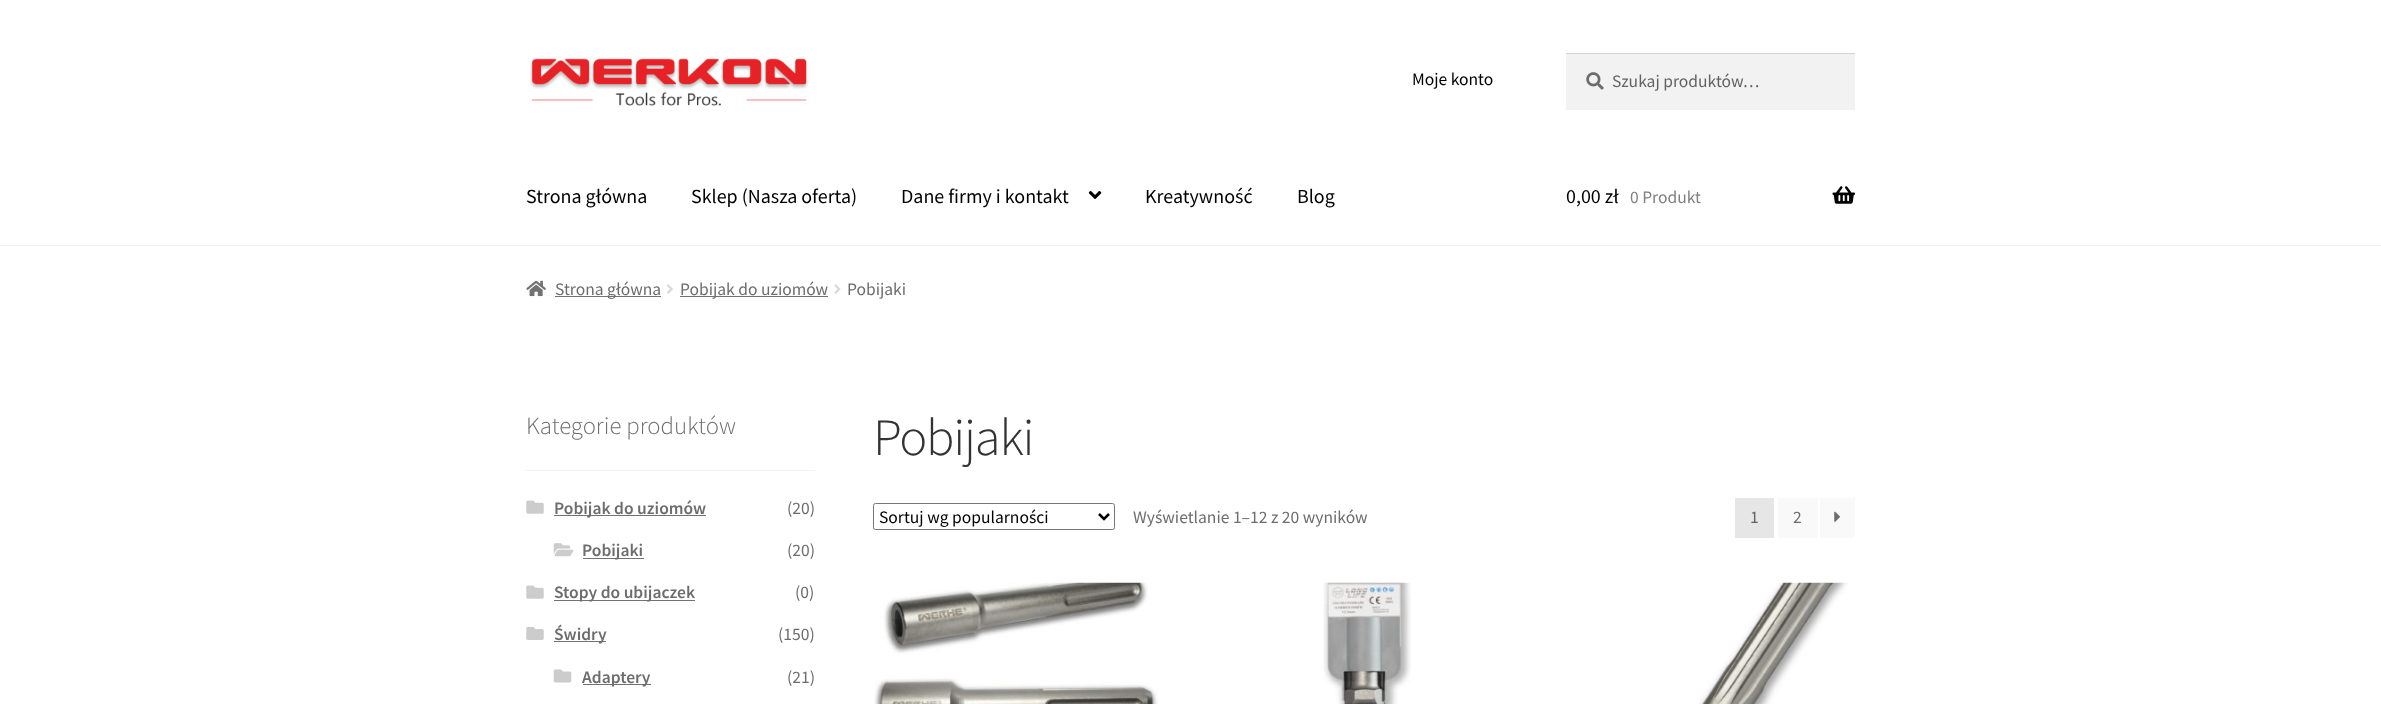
<svg xmlns="http://www.w3.org/2000/svg" width="2381" height="704" viewBox="0 0 2381 704">
  <rect width="100%" height="100%" fill="#ffffff"/>
  <rect x="0" y="245" width="2381" height="1" fill="#f0f0f0"/>
  <image x="530" y="58" width="278" height="48" href="img1.png"/>
  <text x="1412" y="85" font-family="Source Sans Pro" font-size="17.5" fill="#000000">Moje konto</text>
  <rect x="1566" y="54" width="289" height="56" fill="#f2f2f2"/>
  <image x="1586" y="72" width="18" height="18" href="img2.png"/>
  <rect x="1566" y="53" width="289" height="1" fill="#d4d4d4"/>
  <text x="1612" y="87" font-family="Source Sans Pro" font-size="17.5" fill="#636363">Szukaj produktów…</text>
  <text x="526" y="203" font-family="Source Sans Pro" font-size="20" fill="#000000">Strona główna</text>
  <text x="691" y="203" font-family="Source Sans Pro" font-size="20" fill="#000000">Sklep (Nasza oferta)</text>
  <text x="901" y="203" font-family="Source Sans Pro" font-size="20" fill="#000000">Dane firmy i kontakt</text>
  <image x="1088" y="191" width="14" height="8" href="img3.png"/>
  <text x="1145" y="203" font-family="Source Sans Pro" font-size="20" fill="#000000">Kreatywność</text>
  <text x="1297" y="203" font-family="Source Sans Pro" font-size="20" fill="#000000">Blog</text>
  <text x="1566" y="203" font-family="Source Sans Pro" font-size="20" fill="#000000">0,00 zł</text>
  <text x="1630" y="203" font-family="Source Sans Pro" font-size="17.5" fill="#808080">0 Produkt</text>
  <image x="1832" y="186" width="23" height="18" href="img4.png"/>
  <image x="526" y="280" width="20" height="17" href="img5.png"/>
  <rect x="555" y="296" width="106" height="1" fill="#727272"/>
  <text x="555" y="295" font-family="Source Sans Pro" font-size="17.5" fill="#6d6d6d">Strona główna</text>
  <image x="667" y="284" width="6" height="10" href="img6.png"/>
  <rect x="680" y="296" width="148" height="1" fill="#727272"/>
  <text x="680" y="295" font-family="Source Sans Pro" font-size="17.5" fill="#6d6d6d">Pobijak do uziomów</text>
  <image x="834" y="284" width="7" height="10" href="img7.png"/>
  <text x="847" y="295" font-family="Source Sans Pro" font-size="17.5" fill="#6d6d6d">Pobijaki</text>
  <rect x="526" y="470" width="289" height="1" fill="#f2f2f2"/>
  <text x="526" y="434" font-family="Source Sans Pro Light" font-size="24.75" font-weight="300" fill="#6d6d6d">Kategorie produktów</text>
  <image x="526" y="500" width="18" height="14" href="img8.png"/>
  <rect x="554" y="515" width="152" height="1" fill="#727272"/>
  <text x="554" y="514" font-family="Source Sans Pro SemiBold" font-size="17.5" font-weight="600" fill="#6d6d6d">Pobijak do uziomów</text>
  <text x="787" y="514" font-family="Source Sans Pro" font-size="17.5" fill="#6d6d6d">(20)</text>
  <image x="553" y="543" width="21" height="14" href="img9.png"/>
  <rect x="583" y="558" width="61" height="1" fill="#727272"/>
  <text x="582" y="556" font-family="Source Sans Pro SemiBold" font-size="17.5" font-weight="600" fill="#6d6d6d">Pobijaki</text>
  <text x="787" y="556" font-family="Source Sans Pro" font-size="17.5" fill="#6d6d6d">(20)</text>
  <image x="526" y="585" width="18" height="14" href="img8.png"/>
  <rect x="554" y="600" width="141" height="1" fill="#727272"/>
  <text x="554" y="598" font-family="Source Sans Pro SemiBold" font-size="17.5" font-weight="600" fill="#6d6d6d">Stopy do ubijaczek</text>
  <text x="795" y="598" font-family="Source Sans Pro" font-size="17.5" fill="#6d6d6d">(0)</text>
  <image x="526" y="626" width="18" height="14" href="img10.png"/>
  <rect x="554" y="641" width="52" height="1" fill="#727272"/>
  <text x="554" y="640" font-family="Source Sans Pro SemiBold" font-size="17.5" font-weight="600" fill="#6d6d6d">Świdry</text>
  <text x="778" y="640" font-family="Source Sans Pro" font-size="17.5" fill="#6d6d6d">(150)</text>
  <image x="553" y="669" width="19" height="14" href="img11.png"/>
  <rect x="583" y="684" width="68" height="1" fill="#727272"/>
  <text x="582" y="683" font-family="Source Sans Pro SemiBold" font-size="17.5" font-weight="600" fill="#6d6d6d">Adaptery</text>
  <text x="787" y="683" font-family="Source Sans Pro" font-size="17.5" fill="#6d6d6d">(21)</text>
  <text x="873" y="455" font-family="Source Sans Pro Light" font-size="52.5" font-weight="300" letter-spacing="-1.25" fill="#333333">Pobijaki</text>
  <rect x="873.5" y="503.5" width="241" height="26" rx="2" fill="none" stroke="#767676"/>
  <path d="M1099 514L1104 519L1109 514" fill="none" stroke="#000000" stroke-width="2.5"/>
  <text x="879" y="523" font-family="Source Sans Pro" font-size="17.5" fill="#000000">Sortuj wg popularności</text>
  <text x="1133" y="523" font-family="Source Sans Pro" font-size="17.5" fill="#6d6d6d">Wyświetlanie 1–12 z 20 wyników</text>
  <rect x="1735" y="498" width="39" height="40" fill="#e6e6e6"/>
  <text x="1750" y="523" font-family="Source Sans Pro" font-size="17.5" fill="#636363">1</text>
  <rect x="1778" y="498" width="40" height="40" fill="#f9f9f9"/>
  <text x="1793" y="523" font-family="Source Sans Pro" font-size="17.5" fill="#6d6d6d">2</text>
  <rect x="1820" y="498" width="35" height="40" fill="#f9f9f9"/>
  <image x="1834" y="511" width="6" height="11" href="img12.png"/>
  <image x="874" y="582" width="284" height="122" href="img13.png"/>
  <image x="1323" y="582" width="88" height="122" href="img14.png"/>
  <image x="1698" y="582" width="150" height="122" href="img15.png"/>
</svg>
